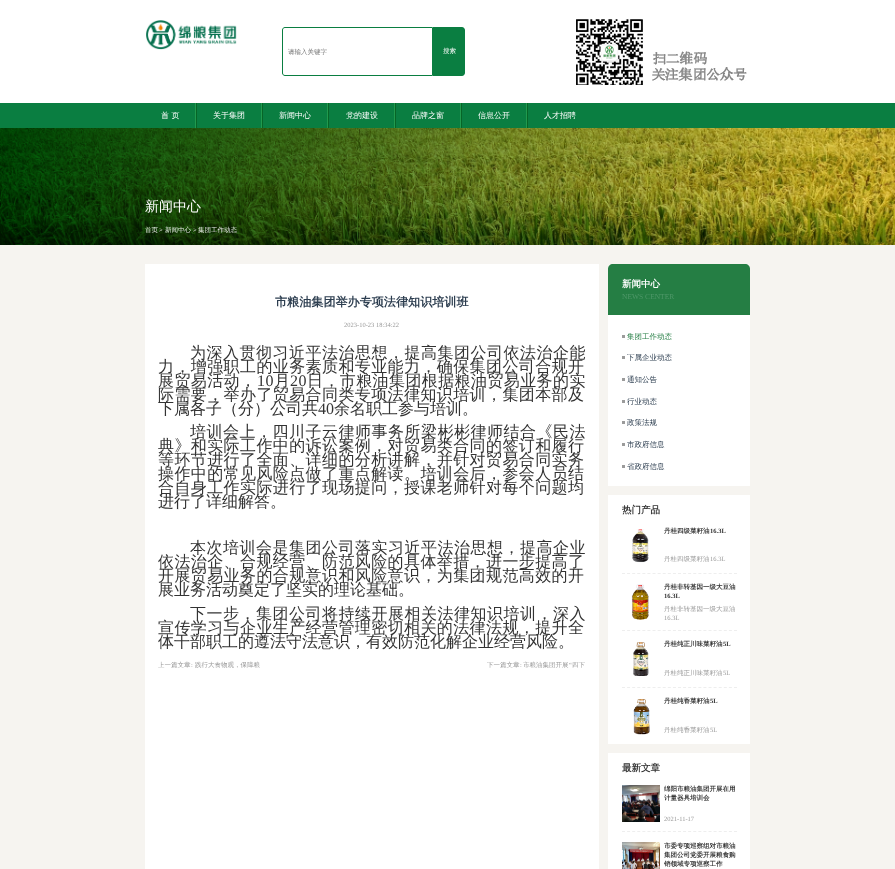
<svg xmlns="http://www.w3.org/2000/svg" width="895" height="869" viewBox="0 0 895 869">
  <rect width="100%" height="100%" fill="#f6f4f0"/>
  <rect x="0" y="0" width="895" height="103" fill="#ffffff"/>
  <image x="146" y="20" width="91" height="30" href="img1.png"/>
  <image x="576" y="19" width="171" height="66" href="img2.png"/>
  <path d="M285 27.5H432.5V75.5H285C283.5 75.5 282.5 74.5 282.5 73V30C282.5 28.5 283.5 27.5 285 27.5Z" fill="none" stroke="#0a7e41"/>
  <text x="288" y="54" font-family="WenQuanYi Zen Hei" font-size="6.5" font-weight="500" fill="#757575">请输入关键字</text>
  <path d="M433 27H462C463.5 27 465 28.5 465 30V73C465 74.5 463.5 76 462 76H433Z" fill="#0a7e41"/>
  <text x="443" y="53" font-family="WenQuanYi Zen Hei" font-size="6.5" font-weight="500" fill="#ffffff">搜索</text>
  <rect x="0" y="103" width="895" height="25" fill="#0a7e41"/>
  <rect x="195" y="103" width="1" height="25" fill="#219a4e"/>
  <text x="161" y="118" font-family="WenQuanYi Zen Hei" font-size="8" font-weight="500" fill="#ffffff">首 页</text>
  <rect x="261" y="103" width="1" height="25" fill="#219a4e"/>
  <rect x="196" y="103" width="1" height="25" fill="#076527"/>
  <text x="213" y="118" font-family="WenQuanYi Zen Hei" font-size="8" font-weight="500" fill="#ffffff">关于集团</text>
  <rect x="327" y="103" width="1" height="25" fill="#219a4e"/>
  <rect x="262" y="103" width="1" height="25" fill="#076527"/>
  <text x="279" y="118" font-family="WenQuanYi Zen Hei" font-size="8" font-weight="500" fill="#ffffff">新闻中心</text>
  <rect x="394" y="103" width="1" height="25" fill="#219a4e"/>
  <rect x="328" y="103" width="1" height="25" fill="#076527"/>
  <text x="346" y="118" font-family="WenQuanYi Zen Hei" font-size="8" font-weight="500" fill="#ffffff">党的建设</text>
  <rect x="460" y="103" width="1" height="25" fill="#219a4e"/>
  <rect x="395" y="103" width="1" height="25" fill="#076527"/>
  <text x="412" y="118" font-family="WenQuanYi Zen Hei" font-size="8" font-weight="500" fill="#ffffff">品牌之窗</text>
  <rect x="526" y="103" width="1" height="25" fill="#219a4e"/>
  <rect x="461" y="103" width="1" height="25" fill="#076527"/>
  <text x="478" y="118" font-family="WenQuanYi Zen Hei" font-size="8" font-weight="500" fill="#ffffff">信息公开</text>
  <rect x="527" y="103" width="1" height="25" fill="#076527"/>
  <text x="544" y="118" font-family="WenQuanYi Zen Hei" font-size="8" font-weight="500" fill="#ffffff">人才招聘</text>
  <image x="0" y="128" width="895" height="117" href="img3.png"/>
  <text x="145" y="211" font-family="WenQuanYi Zen Hei" font-size="14" font-weight="500" fill="#ffffff">新闻中心</text>
  <text x="145" y="232" font-family="WenQuanYi Zen Hei" font-size="6.5" font-weight="500" fill="#e7ebe6">首页</text>
  <text x="159" y="232" font-family="Liberation Serif" font-size="6.5" fill="#e7ebe6">&gt;</text>
  <text x="165" y="232" font-family="WenQuanYi Zen Hei" font-size="6.5" font-weight="500" fill="#e7ebe6">新闻中心</text>
  <text x="193" y="232" font-family="Liberation Serif" font-size="6.5" fill="#e7ebe6">&gt;</text>
  <text x="198" y="232" font-family="WenQuanYi Zen Hei" font-size="6.5" font-weight="500" fill="#e7ebe6">集团工作动态</text>
  <rect x="145" y="264" width="454" height="605" fill="#ffffff"/>
  <text x="275" y="306" font-family="WenQuanYi Zen Hei" font-size="12.1" font-weight="bold" fill="#2d3e50">市粮油集团举办专项法律知识培训班</text>
  <text x="344" y="327" font-family="Liberation Serif" font-size="6.5" fill="#999999">2023-10-23 18:34:22</text>
  <text x="190" y="358" font-family="WenQuanYi Zen Hei" font-size="16" font-weight="500" letter-spacing="0.5" fill="#333333">为深入贯彻习近平法治思想，提高集团公司依法治企能</text>
  <text x="158" y="372" font-family="WenQuanYi Zen Hei" font-size="16" font-weight="500" letter-spacing="0.4" fill="#333333">力，增强职工的业务素质和专业能力，确保集团公司合规开</text>
  <text x="158" y="386" font-family="WenQuanYi Zen Hei" font-size="16" font-weight="500" letter-spacing="0.4" fill="#333333">展贸易活动，</text>
  <text x="257" y="386" font-family="Liberation Serif" font-size="16" letter-spacing="0.4" fill="#333333">10</text>
  <text x="274" y="386" font-family="WenQuanYi Zen Hei" font-size="16" font-weight="500" letter-spacing="0.4" fill="#333333">月</text>
  <text x="290" y="386" font-family="Liberation Serif" font-size="16" letter-spacing="0.4" fill="#333333">20</text>
  <text x="307" y="386" font-family="WenQuanYi Zen Hei" font-size="16" font-weight="500" letter-spacing="0.4" fill="#333333">日，市粮油集团根据粮油贸易业务的实</text>
  <text x="158" y="400" font-family="WenQuanYi Zen Hei" font-size="16" font-weight="500" letter-spacing="0.4" fill="#333333">际需要，举办了贸易合同类专项法律知识培训，集团本部及</text>
  <text x="158" y="414" font-family="WenQuanYi Zen Hei" font-size="16" font-weight="500" fill="#333333">下属各子（分）公司共</text>
  <text x="318" y="414" font-family="Liberation Serif" font-size="16" fill="#333333">40</text>
  <text x="334" y="414" font-family="WenQuanYi Zen Hei" font-size="16" font-weight="500" fill="#333333">余名职工参与培训。</text>
  <text x="190" y="437" font-family="WenQuanYi Zen Hei" font-size="16" font-weight="500" letter-spacing="0.5" fill="#333333">培训会上，四川子云律师事务所梁彬彬律师结合《民法</text>
  <text x="158" y="451" font-family="WenQuanYi Zen Hei" font-size="16" font-weight="500" letter-spacing="0.4" fill="#333333">典》和实际工作中的诉讼案例，对贸易类合同的签订和履行</text>
  <text x="158" y="465" font-family="WenQuanYi Zen Hei" font-size="16" font-weight="500" letter-spacing="0.4" fill="#333333">等环节进行了全面、详细的分析讲解，并针对贸易合同实务</text>
  <text x="158" y="479" font-family="WenQuanYi Zen Hei" font-size="16" font-weight="500" letter-spacing="0.4" fill="#333333">操作中的常见风险点做了重点解读。培训会后，参会人员结</text>
  <text x="158" y="493" font-family="WenQuanYi Zen Hei" font-size="16" font-weight="500" letter-spacing="0.4" fill="#333333">合自身工作实际进行了现场提问，授课老师针对每个问题均</text>
  <text x="158" y="507" font-family="WenQuanYi Zen Hei" font-size="16" font-weight="500" fill="#333333">进行了详细解答。</text>
  <text x="190" y="553" font-family="WenQuanYi Zen Hei" font-size="16" font-weight="500" letter-spacing="0.5" fill="#333333">本次培训会是集团公司落实习近平法治思想，提高企业</text>
  <text x="158" y="567" font-family="WenQuanYi Zen Hei" font-size="16" font-weight="500" letter-spacing="0.4" fill="#333333">依法治企、合规经营、防范风险的具体举措，进一步提高了</text>
  <text x="158" y="581" font-family="WenQuanYi Zen Hei" font-size="16" font-weight="500" letter-spacing="0.4" fill="#333333">开展贸易业务的合规意识和风险意识，为集团规范高效的开</text>
  <text x="158" y="595" font-family="WenQuanYi Zen Hei" font-size="16" font-weight="500" fill="#333333">展业务活动奠定了坚实的理论基础。</text>
  <text x="190" y="619" font-family="WenQuanYi Zen Hei" font-size="16" font-weight="500" letter-spacing="0.5" fill="#333333">下一步，集团公司将持续开展相关法律知识培训，深入</text>
  <text x="158" y="633" font-family="WenQuanYi Zen Hei" font-size="16" font-weight="500" letter-spacing="0.4" fill="#333333">宣传学习与企业生产经营管理密切相关的法律法规，提升全</text>
  <text x="158" y="647" font-family="WenQuanYi Zen Hei" font-size="16" font-weight="500" fill="#333333">体干部职工的遵法守法意识，有效防范化解企业经营风险。</text>
  <text x="158" y="667" font-family="WenQuanYi Zen Hei" font-size="6.5" font-weight="500" fill="#999999">上一篇文章</text>
  <text x="191" y="667" font-family="Liberation Serif" font-size="6.5" fill="#999999">:</text>
  <text x="195" y="667" font-family="WenQuanYi Zen Hei" font-size="6.5" font-weight="500" fill="#999999">践行大食物观，保障粮</text>
  <text x="487" y="667" font-family="WenQuanYi Zen Hei" font-size="6.5" font-weight="500" fill="#999999">下一篇文章</text>
  <text x="520" y="667" font-family="Liberation Serif" font-size="6.5" fill="#999999">:</text>
  <text x="523" y="667" font-family="WenQuanYi Zen Hei" font-size="6.5" font-weight="500" fill="#999999">市粮油集团开展</text>
  <text x="569" y="667" font-family="Liberation Serif" font-size="6.5" fill="#999999">“</text>
  <text x="572" y="667" font-family="WenQuanYi Zen Hei" font-size="6.5" font-weight="500" fill="#999999">四下</text>
  <path d="M613 264H745C748 264 750 266 750 269V486H608V269C608 266 610 264 613 264Z" fill="#ffffff"/>
  <path d="M613 264H745C748 264 750 266 750 269V315H608V269C608 266 610 264 613 264Z" fill="#257e44"/>
  <text x="622" y="287" font-family="WenQuanYi Zen Hei" font-size="9.5" font-weight="bold" fill="#ffffff">新闻中心</text>
  <text x="622" y="299" font-family="Liberation Serif" font-size="7.5" fill="#4e9768">NEWS CENTER</text>
  <text x="627" y="339" font-family="WenQuanYi Zen Hei" font-size="7.5" font-weight="500" fill="#257e44">集团工作动态</text>
  <rect x="622" y="335" width="3" height="3" fill="#9b9b9b"/>
  <text x="627" y="360" font-family="WenQuanYi Zen Hei" font-size="7.5" font-weight="500" fill="#2d3e50">下属企业动态</text>
  <rect x="622" y="356" width="3" height="3" fill="#9b9b9b"/>
  <text x="627" y="382" font-family="WenQuanYi Zen Hei" font-size="7.5" font-weight="500" fill="#2d3e50">通知公告</text>
  <rect x="622" y="378" width="3" height="3" fill="#9b9b9b"/>
  <text x="627" y="404" font-family="WenQuanYi Zen Hei" font-size="7.5" font-weight="500" fill="#2d3e50">行业动态</text>
  <rect x="622" y="400" width="3" height="3" fill="#9b9b9b"/>
  <text x="627" y="425" font-family="WenQuanYi Zen Hei" font-size="7.5" font-weight="500" fill="#2d3e50">政策法规</text>
  <rect x="622" y="421" width="3" height="3" fill="#9b9b9b"/>
  <text x="627" y="447" font-family="WenQuanYi Zen Hei" font-size="7.5" font-weight="500" fill="#2d3e50">市政府信息</text>
  <rect x="622" y="443" width="3" height="3" fill="#9b9b9b"/>
  <text x="627" y="469" font-family="WenQuanYi Zen Hei" font-size="7.5" font-weight="500" fill="#2d3e50">省政府信息</text>
  <rect x="622" y="465" width="3" height="3" fill="#9b9b9b"/>
  <rect x="608" y="495" width="142" height="249" fill="#ffffff"/>
  <text x="622" y="513" font-family="WenQuanYi Zen Hei" font-size="9.5" font-weight="bold" fill="#333333">热门产品</text>
  <path d="M622 573.5H737" fill="none" stroke="#eeeeee" stroke-dasharray="3 2.09"/>
  <image x="632" y="529" width="17" height="34" href="img4.png"/>
  <text x="664" y="533" font-family="WenQuanYi Zen Hei" font-size="6.5" font-weight="bold" fill="#333333">丹桂四级菜籽油</text>
  <text x="710" y="533" font-family="Liberation Serif" font-size="6.5" font-weight="bold" fill="#333333">16.3L</text>
  <text x="664" y="561" font-family="WenQuanYi Zen Hei" font-size="6.5" font-weight="500" fill="#999999">丹桂四级菜籽油</text>
  <text x="710" y="561" font-family="Liberation Serif" font-size="6.5" fill="#999999">16.3L</text>
  <path d="M622 630.5H737" fill="none" stroke="#eeeeee" stroke-dasharray="3 2.09"/>
  <image x="631" y="584" width="18" height="36" href="img5.png"/>
  <text x="664" y="589" font-family="WenQuanYi Zen Hei" font-size="6.5" font-weight="bold" fill="#333333">丹桂非转基因一级大豆油</text>
  <text x="664" y="598" font-family="Liberation Serif" font-size="6.5" font-weight="bold" fill="#333333">16.3L</text>
  <text x="664" y="611" font-family="WenQuanYi Zen Hei" font-size="6.5" font-weight="500" fill="#999999">丹桂非转基因一级大豆油</text>
  <text x="664" y="620" font-family="Liberation Serif" font-size="6.5" fill="#999999">16.3L</text>
  <path d="M622 687.5H737" fill="none" stroke="#eeeeee" stroke-dasharray="3 2.09"/>
  <image x="633" y="642" width="16" height="35" href="img6.png"/>
  <text x="664" y="646" font-family="WenQuanYi Zen Hei" font-size="6.5" font-weight="bold" fill="#333333">丹桂纯正川味菜籽油</text>
  <text x="723" y="646" font-family="Liberation Serif" font-size="6.5" font-weight="bold" fill="#333333">5L</text>
  <text x="664" y="675" font-family="WenQuanYi Zen Hei" font-size="6.5" font-weight="500" fill="#999999">丹桂纯正川味菜籽油</text>
  <text x="723" y="675" font-family="Liberation Serif" font-size="6.5" fill="#999999">5L</text>
  <image x="633" y="699" width="17" height="36" href="img7.png"/>
  <text x="664" y="703" font-family="WenQuanYi Zen Hei" font-size="6.5" font-weight="bold" fill="#333333">丹桂纯香菜籽油</text>
  <text x="710" y="703" font-family="Liberation Serif" font-size="6.5" font-weight="bold" fill="#333333">5L</text>
  <text x="664" y="732" font-family="WenQuanYi Zen Hei" font-size="6.5" font-weight="500" fill="#999999">丹桂纯香菜籽油</text>
  <text x="710" y="732" font-family="Liberation Serif" font-size="6.5" fill="#999999">5L</text>
  <rect x="608" y="753" width="142" height="116" fill="#ffffff"/>
  <text x="622" y="771" font-family="WenQuanYi Zen Hei" font-size="9.5" font-weight="bold" fill="#333333">最新文章</text>
  <path d="M622 831.5H737" fill="none" stroke="#eeeeee" stroke-dasharray="3 2.09"/>
  <image x="622" y="785" width="38" height="37" href="img8.png"/>
  <text x="664" y="791" font-family="WenQuanYi Zen Hei" font-size="6.5" font-weight="bold" fill="#333333">绵阳市粮油集团开展在用</text>
  <text x="664" y="800" font-family="WenQuanYi Zen Hei" font-size="6.5" font-weight="bold" fill="#333333">计量器具培训会</text>
  <text x="664" y="821" font-family="Liberation Serif" font-size="6.5" fill="#999999">2021-11-17</text>
  <image x="622" y="842" width="38" height="27" href="img9.png"/>
  <text x="664" y="848" font-family="WenQuanYi Zen Hei" font-size="6.5" font-weight="bold" fill="#333333">市委专项巡察组对市粮油</text>
  <text x="664" y="857" font-family="WenQuanYi Zen Hei" font-size="6.5" font-weight="bold" fill="#333333">集团公司党委开展粮食购</text>
  <text x="664" y="866" font-family="WenQuanYi Zen Hei" font-size="6.5" font-weight="bold" fill="#333333">销领域专项巡察工作</text>
</svg>
